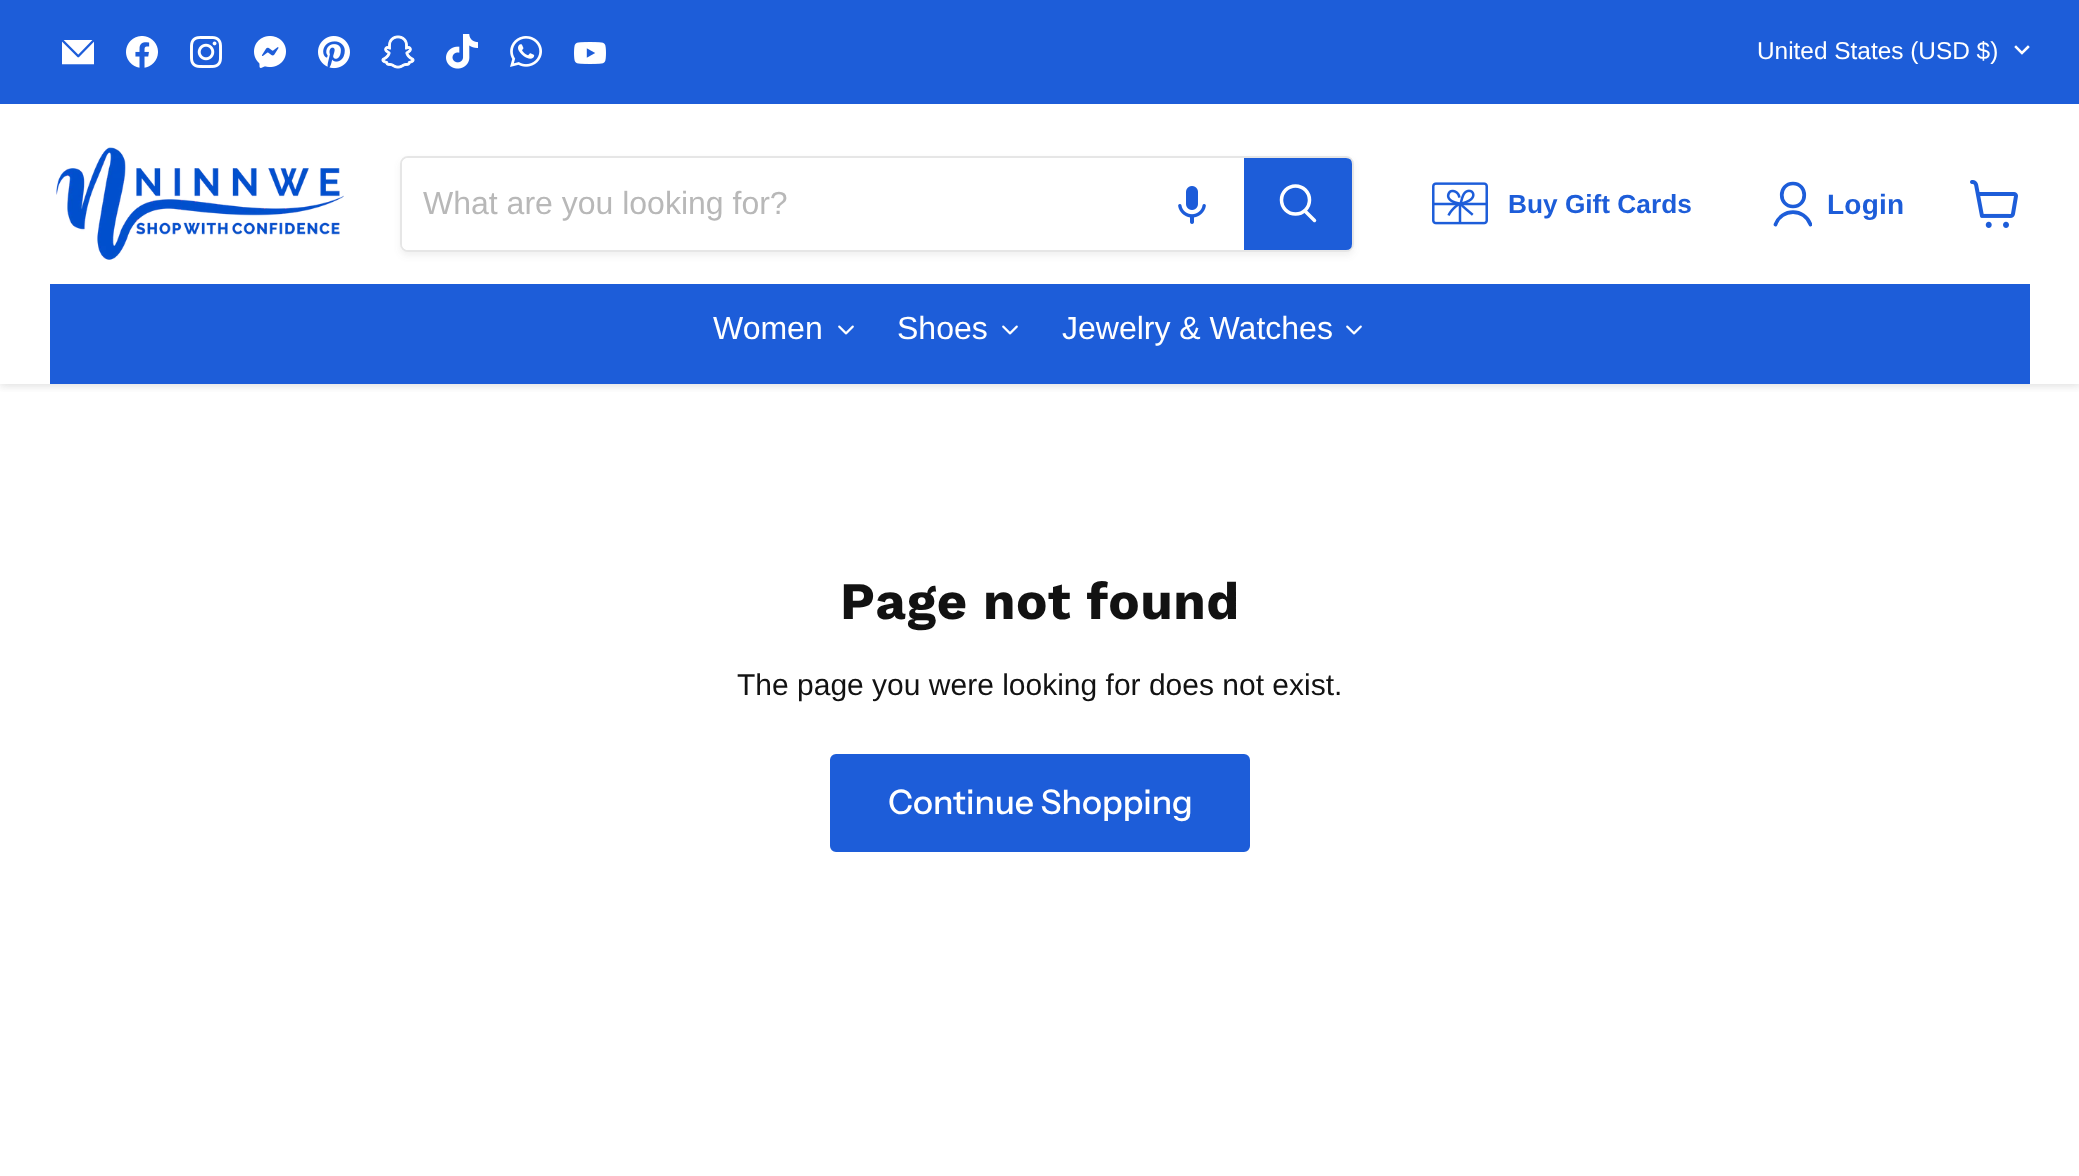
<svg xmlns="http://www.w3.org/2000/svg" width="2079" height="1176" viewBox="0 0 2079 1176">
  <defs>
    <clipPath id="clip1"><rect x="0" y="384" width="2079" height="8"/></clipPath>
    <filter id="blur1" x="-50%" y="-200%" width="200%" height="500%"><feGaussianBlur stdDeviation="4"/></filter>
    <clipPath id="clip2"><path d="M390 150H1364V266H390ZM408 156H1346C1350.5 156 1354 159.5 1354 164V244C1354 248.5 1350.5 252 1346 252H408C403.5 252 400 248.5 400 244V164C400 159.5 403.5 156 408 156Z" clip-rule="evenodd"/></clipPath>
    <filter id="blur2" x="-50%" y="-200%" width="200%" height="500%"><feGaussianBlur stdDeviation="3"/></filter>
    <clipPath id="clip3"><rect x="1772" y="180" width="40" height="48"/></clipPath>
  </defs>
  <rect width="100%" height="100%" fill="#ffffff"/>
  <g clip-path="url(#clip1)">
    <rect x="0" y="106" width="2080" height="280" fill="#808080" fill-opacity="0.25" filter="url(#blur1)"/>
  </g>
  <rect x="0" y="0" width="2079" height="104" fill="#1d5dd9"/>
  <image x="62" y="40" width="32" height="25" href="img1.png"/>
  <image x="126" y="36" width="32" height="32" href="img2.png"/>
  <image x="190" y="36" width="32" height="32" href="img3.png"/>
  <image x="254" y="36" width="32" height="32" href="img4.png"/>
  <image x="318" y="36" width="32" height="33" href="img5.png"/>
  <image x="381" y="35" width="34" height="34" href="img6.png"/>
  <image x="446" y="34" width="32" height="35" href="img7.png"/>
  <image x="510" y="36" width="32" height="31" href="img8.png"/>
  <image x="574" y="42" width="32" height="22" href="img9.png"/>
  <text x="1757" y="59" font-family="Liberation Sans" font-size="24.4" fill="#ffffff">United States (USD $)</text>
  <path d="M2022 53L2028 47M2022 53L2016 47" fill="none" stroke="#ffffff" stroke-width="2.5" stroke-linecap="square"/>
  <image x="56" y="147" width="288" height="113" href="img10.png"/>
  <g clip-path="url(#clip2)">
    <rect x="400" y="160" width="954" height="96" rx="8" fill="#808080" fill-opacity="0.11" filter="url(#blur2)"/>
  </g>
  <rect x="401" y="157" width="952" height="94" rx="7" fill="none" stroke="#808080" stroke-opacity="0.2" stroke-width="2"/>
  <path d="M408 158H1244V250H408C404.5 250 402 247.5 402 244V164C402 160.5 404.5 158 408 158Z" fill="#ffffff"/>
  <text x="423" y="214" font-family="Liberation Sans" font-size="32" fill="#b8b8b8">What are you looking for?</text>
  <image x="1178" y="186" width="28" height="38" href="img11.png"/>
  <path d="M1245 159H1346C1349 159 1351 161 1351 164V244C1351 247 1349 249 1346 249H1245Z" fill="#1d5dd9" stroke="#1d5dd9" stroke-width="2"/>
  <path d="M1314.5 220.5L1305 211" fill="none" stroke="#ffffff" stroke-width="3.5" stroke-linecap="round"/>
  <circle cx="1295.5" cy="200" r="14" fill="none" stroke="#ffffff" stroke-width="3.5"/>
  <image x="1432" y="182" width="56" height="43" href="img12.png"/>
  <text x="1508" y="213" font-family="Liberation Sans" font-size="26.25" font-weight="bold" fill="#1d5dd9">Buy Gift Cards</text>
  <path d="M1793 206.5C1808 206.5 1808 183.5 1793 183.5C1778 183.5 1778 206.5 1793 206.5Z" fill="none" stroke="#1d5dd9" stroke-width="3.7" stroke-linecap="round" stroke-linejoin="round"/>
  <g clip-path="url(#clip3)">
    <path d="M1810.5 224.5C1804.5 208 1781.5 208 1775.5 224.5" fill="none" stroke="#1d5dd9" stroke-width="3.7" stroke-linecap="round" stroke-linejoin="round"/>
  </g>
  <text x="1827" y="214" font-family="Liberation Sans" font-size="28" font-weight="bold" letter-spacing="0.25" fill="#1d5dd9">Login</text>
  <image x="1970" y="180" width="48" height="48" href="img13.png"/>
  <rect x="50" y="284" width="1980" height="100" fill="#1d5dd9"/>
  <text x="713" y="339" font-family="Liberation Sans" font-size="32" fill="#ffffff">Women</text>
  <image x="838" y="325" width="16" height="10" href="img14.png"/>
  <text x="897" y="339" font-family="Liberation Sans" font-size="32" fill="#ffffff">Shoes</text>
  <image x="1002" y="325" width="16" height="10" href="img14.png"/>
  <text x="1062" y="339" font-family="Liberation Sans" font-size="32" fill="#ffffff">Jewelry &amp; Watches</text>
  <image x="1346" y="325" width="16" height="10" href="img14.png"/>
  <text x="840" y="619" font-family="Work Sans" font-size="52.5" font-weight="bold" letter-spacing="0.5" fill="#121212">Page not found</text>
  <text x="737" y="695" font-family="Liberation Sans" font-size="30" fill="#121212">The page you were looking for does not exist.</text>
  <rect x="831" y="755" width="418" height="96" rx="5" fill="#1d5dd9" stroke="#1d5dd9" stroke-width="2"/>
  <text x="888" y="814" font-family="Instrument Sans" font-size="33.75" font-weight="500" fill="#ffffff">Continue Shopping</text>
</svg>
